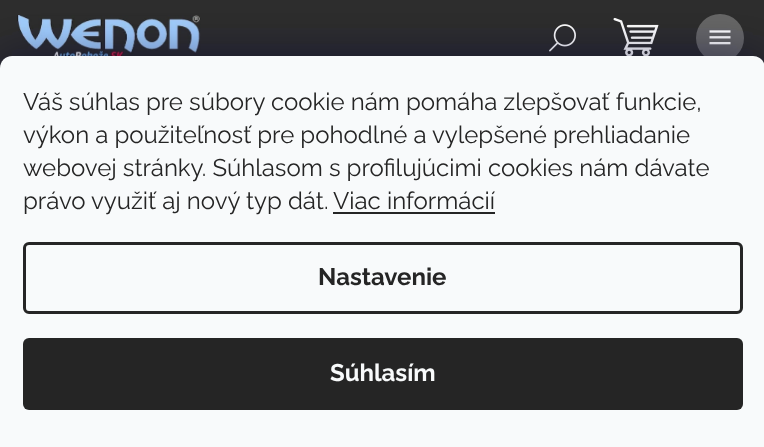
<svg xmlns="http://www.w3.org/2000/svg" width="764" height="447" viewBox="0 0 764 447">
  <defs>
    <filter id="blur1" x="-50%" y="-200%" width="200%" height="500%"><feGaussianBlur stdDeviation="22.5"/></filter>
  </defs>
  <rect width="100%" height="100%" fill="#2d2d2d"/>
  <image x="549" y="24" width="27" height="28" href="img1.png"/>
  <circle cx="720" cy="38" r="24" fill="#666666"/>
  <image x="709" y="30" width="22" height="15" href="img2.png"/>
  <image x="17" y="15" width="184" height="41" href="img3.png"/>
  <image x="613" y="17" width="46" height="39" href="img4.png"/>
  <rect x="0" y="56" width="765" height="391" rx="12" fill="#1b1939" fill-opacity="0.5" filter="url(#blur1)"/>
  <path d="M12 56H753C759.5 56 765 61.5 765 68V447H0V68C0 61.5 5.5 56 12 56Z" fill="#f8fafb"/>
  <text x="23" y="110" font-family="Raleway" font-size="24" fill="#252525">Váš súhlas pre súbory cookie nám pomáha zlepšovať funkcie,</text>
  <text x="23" y="143" font-family="Raleway" font-size="24" fill="#252525">výkon a použiteľnosť pre pohodlné a vylepšené prehliadanie</text>
  <text x="23" y="176" font-family="Raleway" font-size="24" fill="#252525">webovej stránky. Súhlasom s profilujúcimi cookies nám dávate</text>
  <text x="23" y="209" font-family="Raleway" font-size="24" fill="#252525">právo využiť aj nový typ dát.</text>
  <text x="333" y="209" font-family="Raleway" font-size="24" fill="#252525">Viac informácií</text>
  <rect x="333" y="212" width="162" height="2" fill="#252525"/>
  <rect x="24.5" y="243.5" width="717" height="69" rx="4.5" fill="none" stroke="#252525" stroke-width="3"/>
  <text x="318" y="285" font-family="Raleway" font-size="24" font-weight="bold" fill="#252525">Nastavenie</text>
  <rect x="23" y="338" width="720" height="72" rx="6" fill="#252525"/>
  <text x="330" y="381" font-family="Raleway" font-size="24" font-weight="bold" fill="#f8fafb">Súhlasím</text>
</svg>
